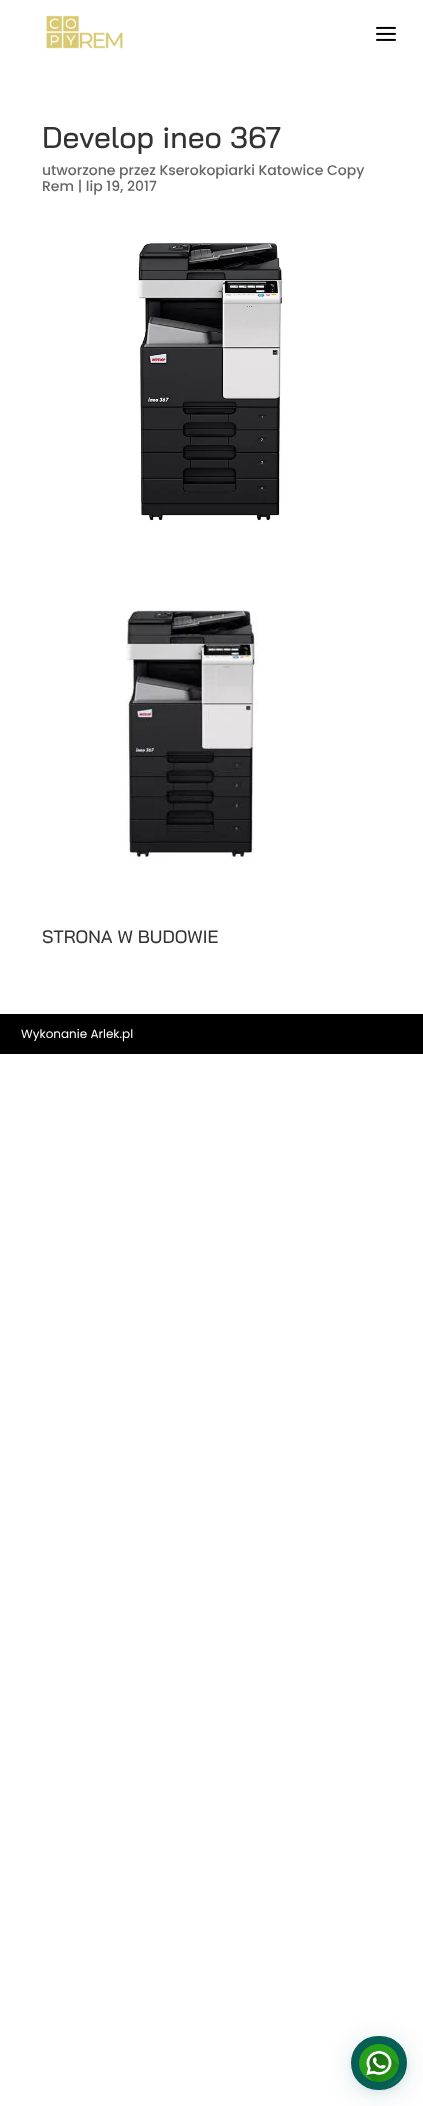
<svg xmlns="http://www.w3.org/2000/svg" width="423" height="2106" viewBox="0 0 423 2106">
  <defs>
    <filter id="blur1" x="-50%" y="-200%" width="200%" height="500%"><feGaussianBlur stdDeviation="3"/></filter>
    <filter id="blur2" x="-50%" y="-200%" width="200%" height="500%"><feGaussianBlur stdDeviation="12"/></filter>
    <clipPath id="clip1"><rect x="351" y="2036" width="56" height="54" rx="27"/></clipPath>
    <linearGradient id="g1" gradientUnits="userSpaceOnUse" x1="354" y1="2038" x2="405" y2="2089"><stop offset="0.8" stop-color="#075e54"/><stop offset="1" stop-color="#25d366"/></linearGradient>
  </defs>
  <rect width="100%" height="100%" fill="#ffffff"/>
  <image x="46" y="15" width="77" height="34" href="img1.png"/>
  <image x="376" y="26" width="20" height="15" href="img2.png"/>
  <text x="42" y="148" font-family="Bai Jamjuree" font-size="30" font-weight="500" fill="#333333">Develop ineo 367</text>
  <text x="42" y="175" font-family="Poppins" font-size="14" font-weight="500" fill="#666666">utworzone przez Kserokopiarki Katowice Copy</text>
  <text x="42" y="191" font-family="Poppins" font-size="14" font-weight="500" fill="#666666">Rem | lip 19, 2017</text>
  <image x="137" y="242" width="146" height="280" href="img3.png"/>
  <image x="126" y="610" width="132" height="248" href="img4.png"/>
  <text x="42" y="943" font-family="Bai Jamjuree" font-size="18" font-weight="500" fill="#333333">STRONA W BUDOWIE</text>
  <rect x="0" y="1014" width="423" height="40" fill="#000000"/>
  <text x="21" y="1038" font-family="Poppins" font-size="12" fill="#ffffff">Wykonanie Arlek.pl</text>
  <rect x="351" y="2038" width="56" height="54" rx="27" fill="#000000" fill-opacity="0.07" filter="url(#blur1)"/>
  <rect x="351" y="2040" width="56" height="54" rx="27" fill="#075e54" fill-opacity="0.15" filter="url(#blur2)"/>
  <g clip-path="url(#clip1)">
    <rect x="353" y="2038" width="52" height="50" fill="url(#g1)"/>
  </g>
  <rect x="352" y="2037" width="54" height="52" rx="26" fill="none" stroke="#075e54" stroke-width="2"/>
  <image x="359" y="2044" width="40" height="38" href="img5.png"/>
</svg>
